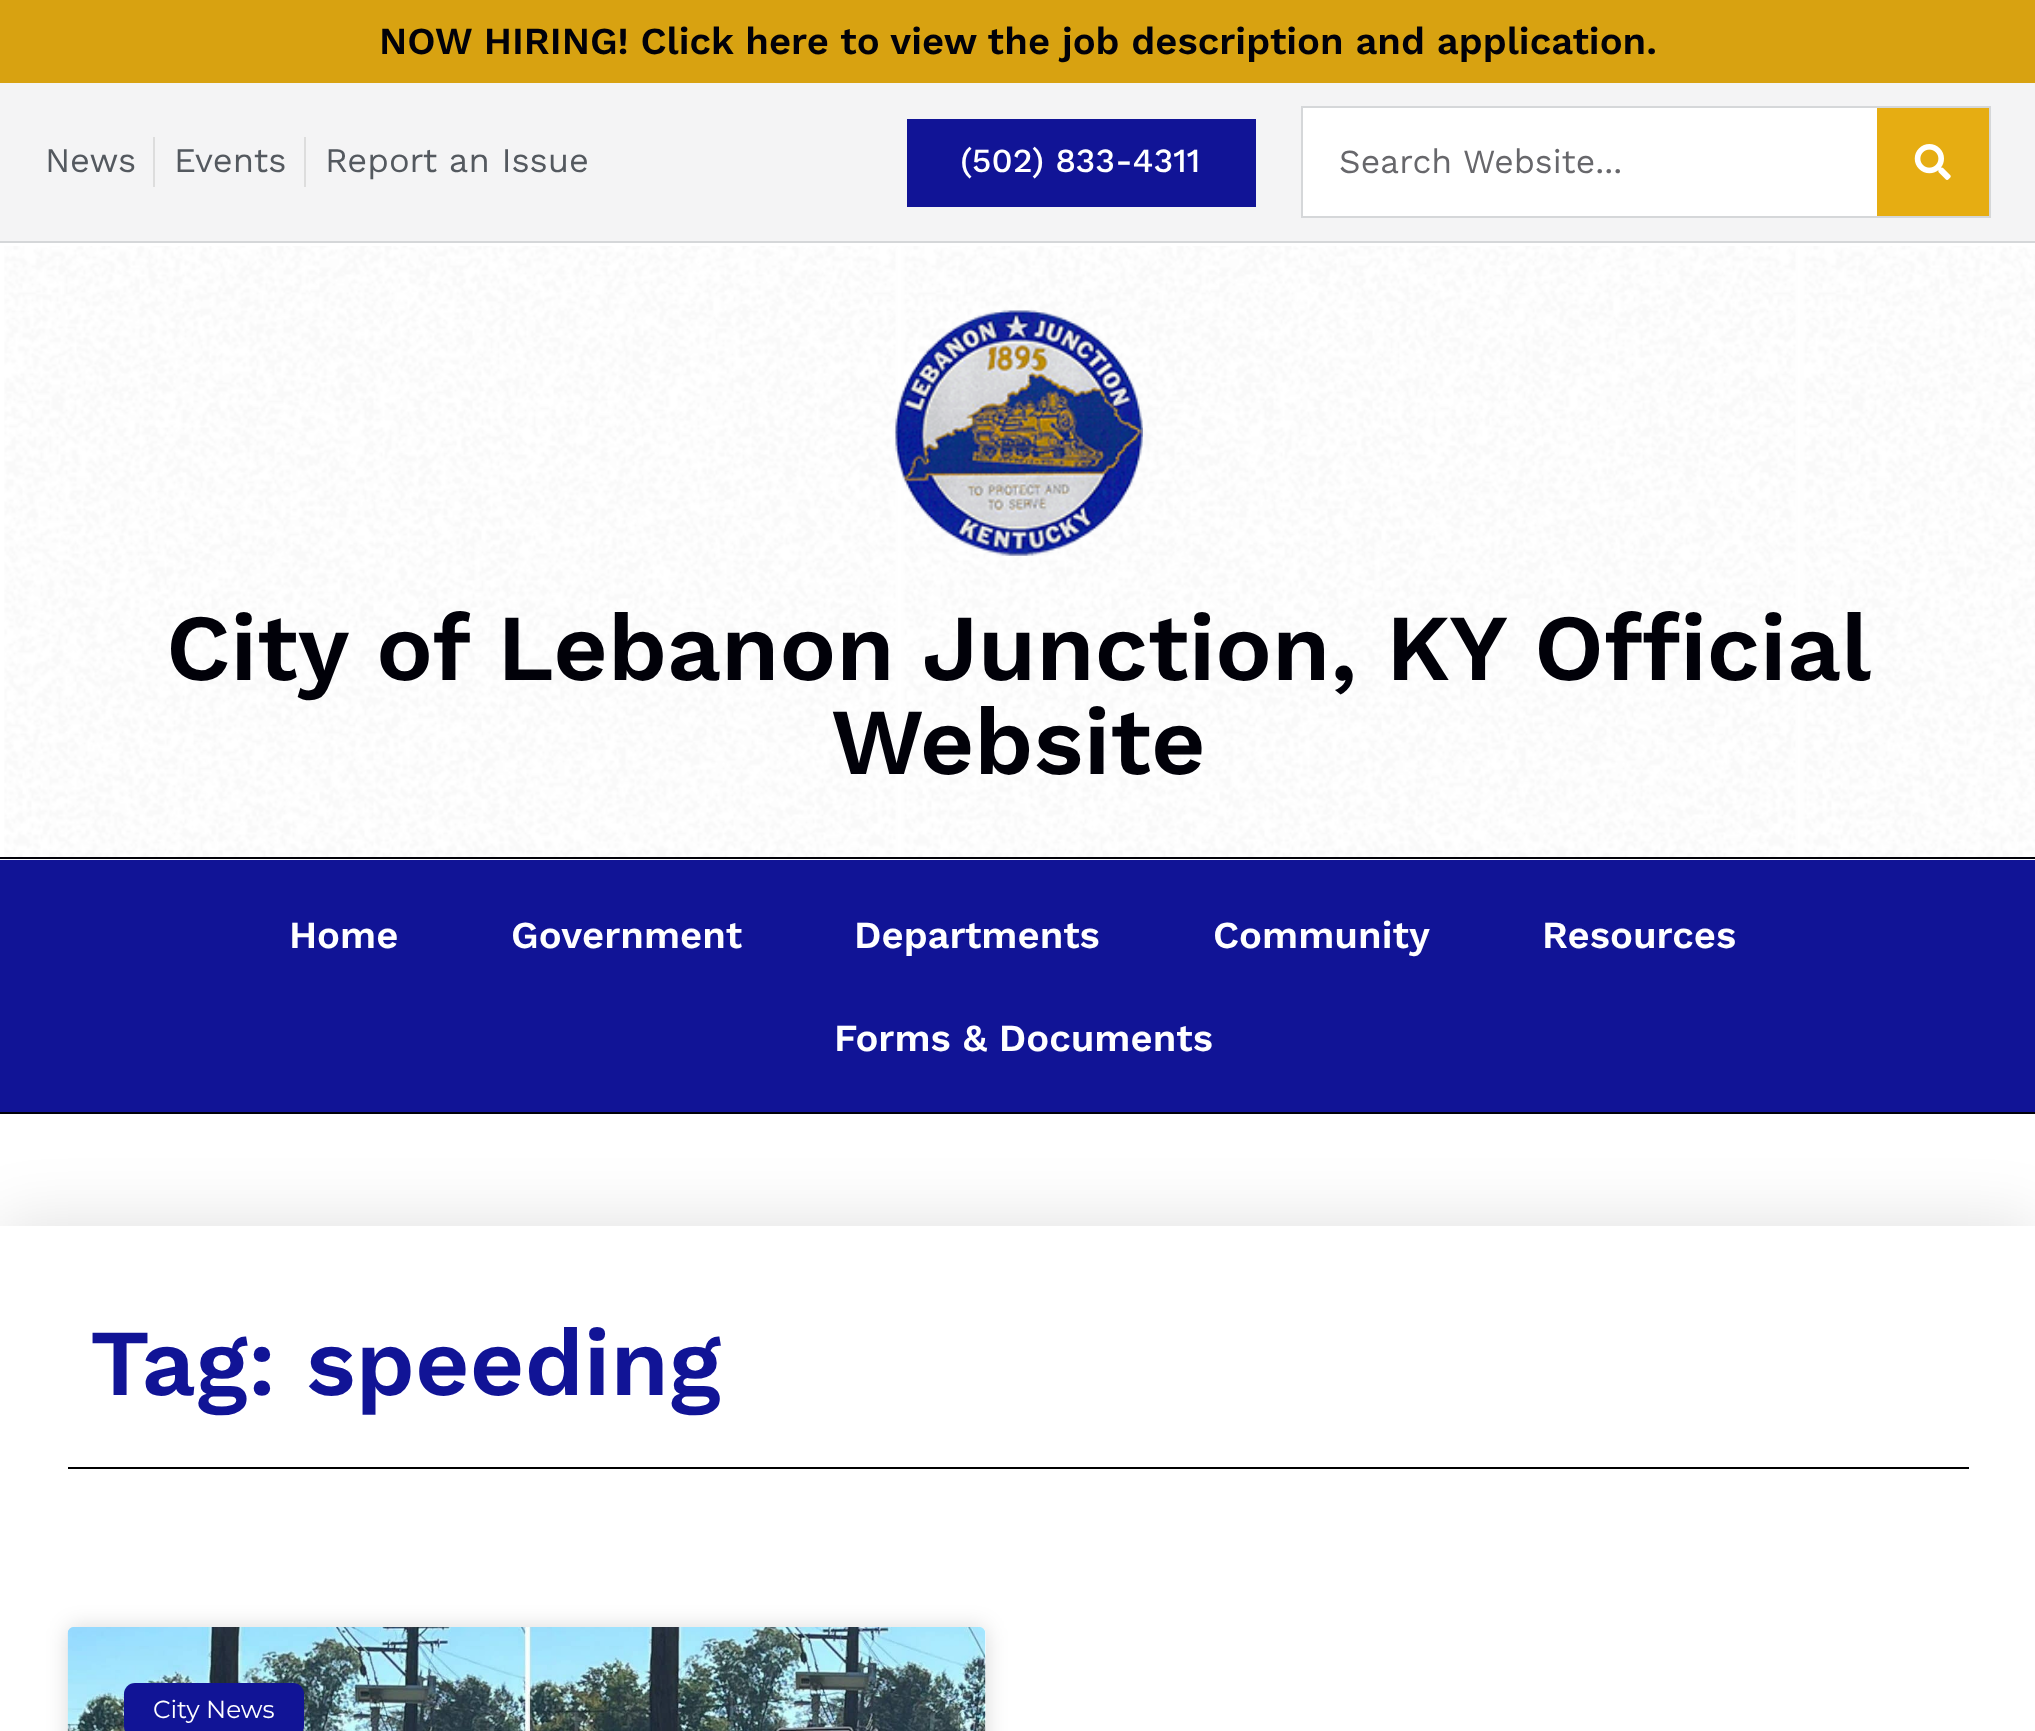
<svg xmlns="http://www.w3.org/2000/svg" width="2035" height="1731" viewBox="0 0 2035 1731">
  <defs>
    <filter id="blur1" x="-50%" y="-200%" width="200%" height="500%"><feGaussianBlur stdDeviation="34"/></filter>
    <filter id="blur2" x="-50%" y="-200%" width="200%" height="500%"><feGaussianBlur stdDeviation="11"/></filter>
  </defs>
  <rect width="100%" height="100%" fill="#ffffff"/>
  <rect x="0" y="0" width="2035" height="83" fill="#d8a211"/>
  <text x="379" y="54" font-family="Work Sans" font-size="38.25" font-weight="600" fill="#010109">NOW HIRING! Click here to view the job description and application.</text>
  <rect x="0" y="83" width="2035" height="158" fill="#f4f4f5"/>
  <rect x="0" y="241" width="2035" height="2" fill="#d5d7d9"/>
  <text x="45" y="172" font-family="Work Sans" font-size="34.5" fill="#54595f">News</text>
  <rect x="153" y="137" width="2" height="50" fill="#dddddd"/>
  <text x="174" y="172" font-family="Work Sans" font-size="34.5" fill="#54595f">Events</text>
  <rect x="304" y="137" width="2" height="50" fill="#dddddd"/>
  <text x="325" y="172" font-family="Work Sans" font-size="34.5" fill="#54595f">Report an Issue</text>
  <rect x="907" y="119" width="349" height="88" fill="#111496"/>
  <text x="960" y="172" font-family="Work Sans" font-size="33.75" font-weight="500" fill="#ffffff">(502) 833-4311</text>
  <rect x="1303" y="108" width="574" height="108" fill="#ffffff"/>
  <rect x="1302" y="107" width="688" height="110" fill="none" stroke="#d5d7d9" stroke-width="2"/>
  <text x="1339" y="173" font-family="Work Sans" font-size="33.75" fill="#67676b">Search Website...</text>
  <rect x="1877" y="108" width="112" height="108" fill="#e6ad12"/>
  <image x="1914" y="144" width="37" height="36" href="img1.png"/>
  <image x="4" y="246" width="2031" height="611" href="img2.png"/>
  <image x="895" y="310" width="248" height="246" href="img3.png"/>
  <text x="166" y="680" font-family="Work Sans" font-size="94.5" font-weight="600" fill="#010109">City of Lebanon Junction, KY Official</text>
  <text x="831" y="774" font-family="Work Sans" font-size="94.5" font-weight="600" fill="#010109">Website</text>
  <rect x="0" y="860" width="2035" height="252" fill="#111496"/>
  <rect x="0" y="857" width="2035" height="2" fill="#010109"/>
  <rect x="0" y="1112" width="2035" height="2" fill="#010109"/>
  <text x="289" y="948" font-family="Work Sans" font-size="38.25" font-weight="600" fill="#ffffff">Home</text>
  <text x="511" y="948" font-family="Work Sans" font-size="38.25" font-weight="600" fill="#ffffff">Government</text>
  <text x="854" y="948" font-family="Work Sans" font-size="38.25" font-weight="600" fill="#ffffff">Departments</text>
  <text x="1213" y="948" font-family="Work Sans" font-size="38.25" font-weight="600" fill="#ffffff">Community</text>
  <text x="1542" y="948" font-family="Work Sans" font-size="38.25" font-weight="600" fill="#ffffff">Resources</text>
  <text x="834" y="1051" font-family="Work Sans" font-size="38.25" font-weight="600" fill="#ffffff">Forms &amp; Documents</text>
  <rect x="0" y="1226" width="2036" height="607" fill="#000000" fill-opacity="0.13" filter="url(#blur1)"/>
  <rect x="0" y="1226" width="2035" height="505" fill="#ffffff"/>
  <text x="90" y="1395" font-family="Work Sans" font-size="94.5" font-weight="600" fill="#111496">Tag: speeding</text>
  <rect x="68" y="1467" width="1901" height="2" fill="#000000"/>
  <rect x="68" y="1627" width="918" height="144" rx="7" fill="#000000" fill-opacity="0.15" filter="url(#blur2)"/>
  <rect x="68" y="1627" width="918" height="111" rx="7" fill="#ffffff"/>
  <image x="67" y="1627" width="919" height="104" href="img4.png"/>
  <rect x="124" y="1683" width="180" height="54" rx="11" fill="#111496"/>
  <text x="153" y="1718" font-family="Montserrat" font-size="24.75" fill="#ffffff">City News</text>
</svg>
